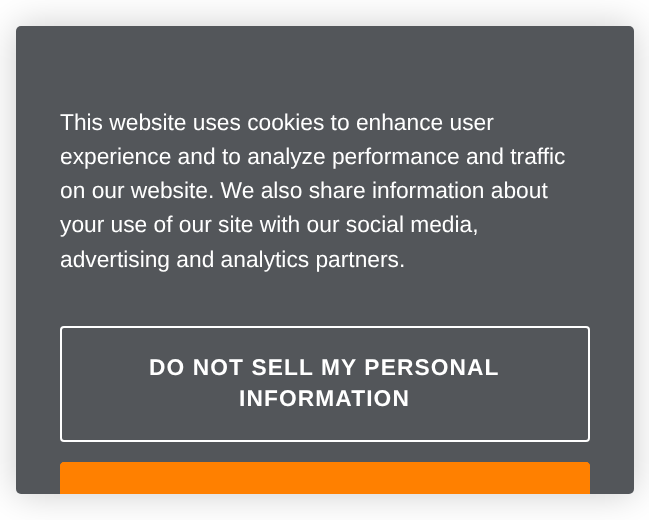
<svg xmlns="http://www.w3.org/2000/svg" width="649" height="520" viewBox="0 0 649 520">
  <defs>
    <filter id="blur1" x="-50%" y="-200%" width="200%" height="500%"><feGaussianBlur stdDeviation="18"/></filter>
  </defs>
  <rect width="100%" height="100%" fill="#ffffff"/>
  <rect x="16" y="26" width="618" height="468" rx="5" fill="#000000" fill-opacity="0.2" filter="url(#blur1)"/>
  <rect x="16" y="26" width="618" height="468" rx="5" fill="#53565a"/>
  <text x="60" y="130" font-family="Liberation Sans" font-size="22.75" fill="#ffffff">This website uses cookies to enhance user</text>
  <text x="60" y="164" font-family="Liberation Sans" font-size="22.75" fill="#ffffff">experience and to analyze performance and traffic</text>
  <text x="60" y="198" font-family="Liberation Sans" font-size="22.75" fill="#ffffff">on our website. We also share information about</text>
  <text x="60" y="232" font-family="Liberation Sans" font-size="22.75" fill="#ffffff">your use of our site with our social media,</text>
  <text x="60" y="267" font-family="Liberation Sans" font-size="22.75" fill="#ffffff">advertising and analytics partners.</text>
  <rect x="61" y="327" width="528" height="114" rx="3" fill="none" stroke="#ffffff" stroke-width="2"/>
  <text x="149" y="375" font-family="Liberation Sans" font-size="22.75" font-weight="bold" letter-spacing="1.1" fill="#ffffff">DO NOT SELL MY PERSONAL</text>
  <text x="239" y="406" font-family="Liberation Sans" font-size="22.75" font-weight="bold" letter-spacing="1.1" fill="#ffffff">INFORMATION</text>
  <path d="M64 462H586C588 462 590 464 590 466V494H60V466C60 464 62 462 64 462Z" fill="#ff8000"/>
  <path d="M64 462C62 462 60 464 60 466V494H62V466C62 465 63 464 64 464H586C587 464 588 465 588 466V494H590V466C590 464 588 462 586 462Z" fill="#ff8000"/>
</svg>
